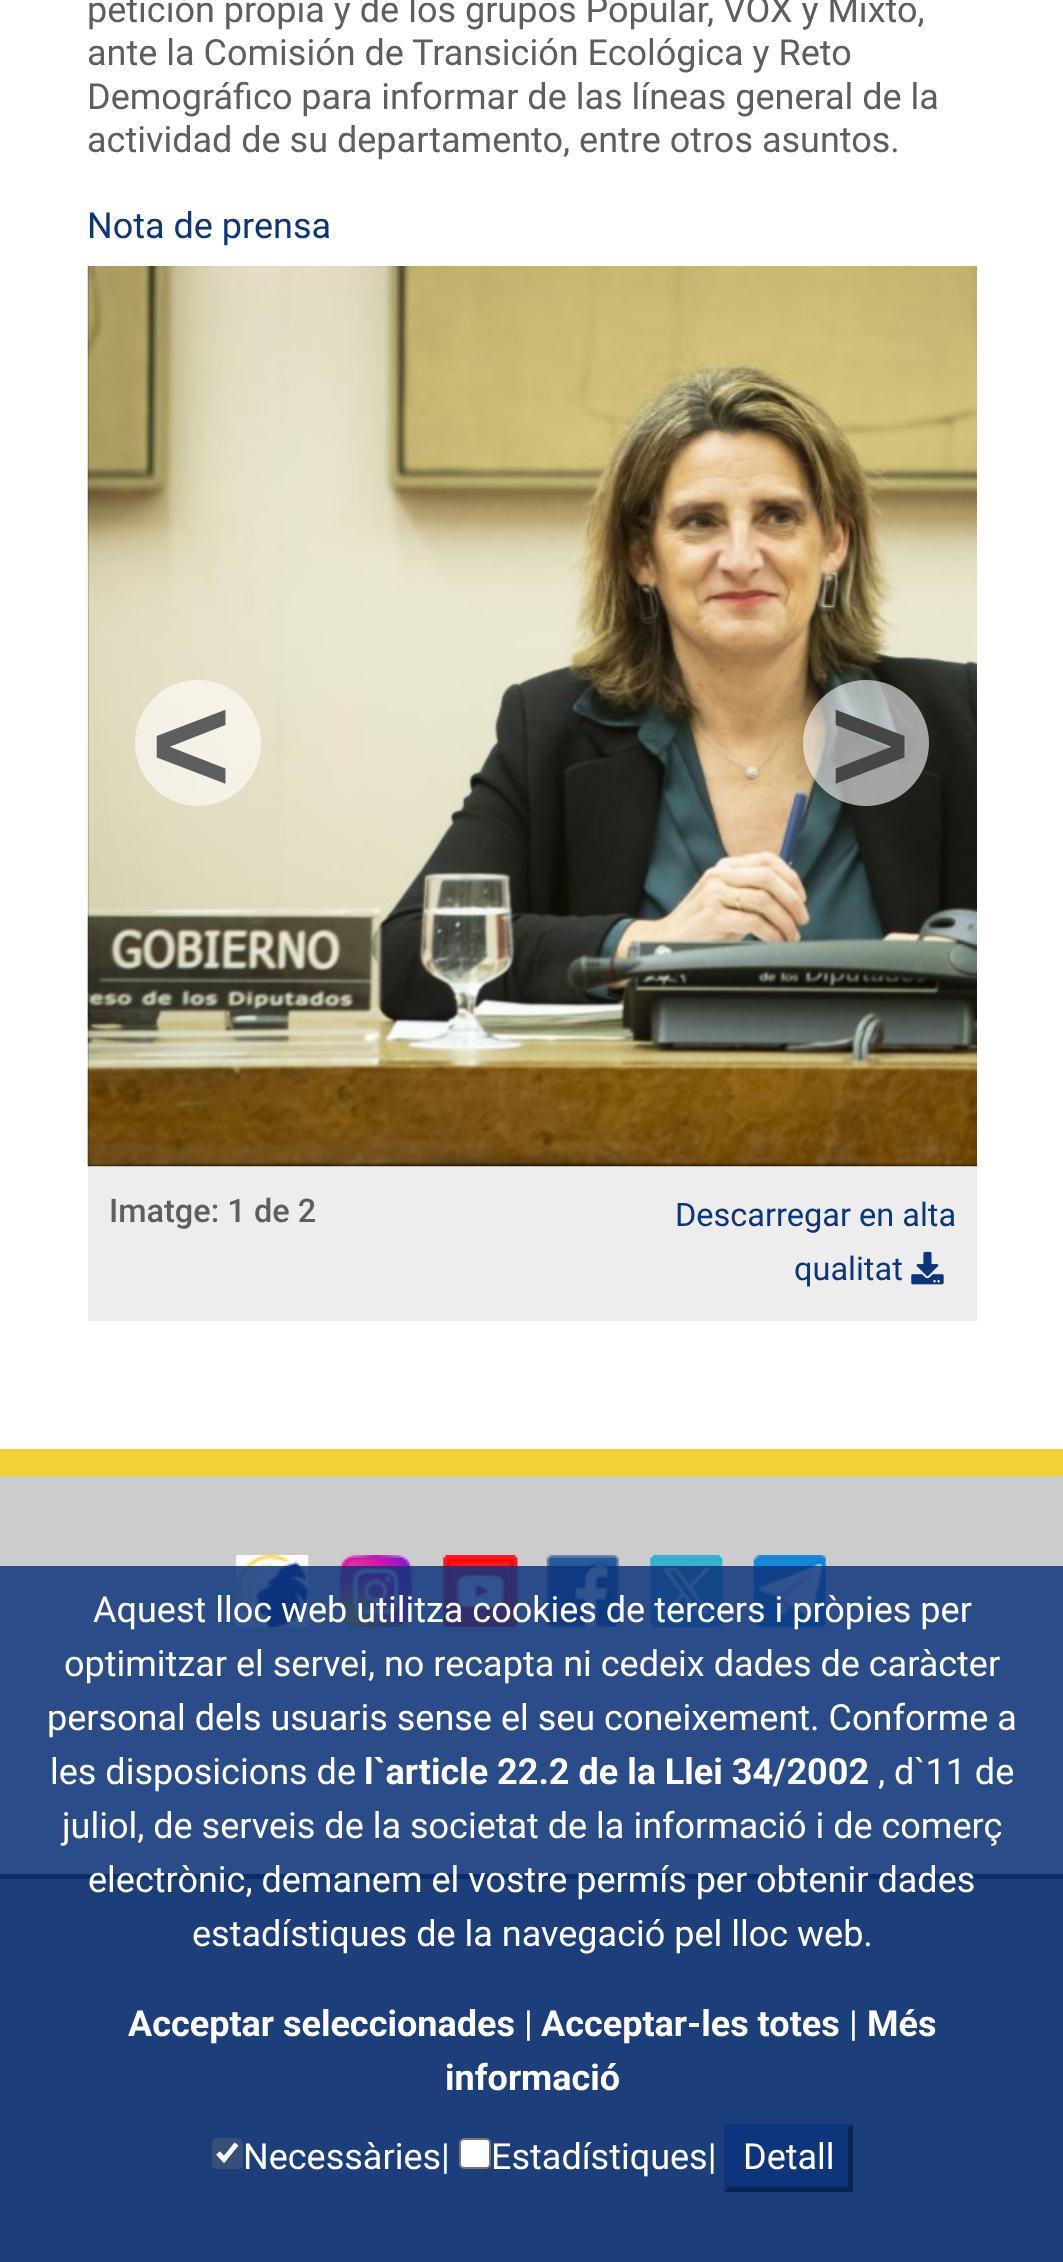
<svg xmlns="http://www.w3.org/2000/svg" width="1063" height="2262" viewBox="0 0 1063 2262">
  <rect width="100%" height="100%" fill="#ffffff"/>
  <text x="87" y="22" font-family="Roboto" font-size="36" fill="#5e5e5e">petición propia y de los grupos Popular, VOX y Mixto,</text>
  <text x="87" y="65" font-family="Roboto" font-size="36" fill="#5e5e5e">ante la Comisión de Transición Ecológica y Reto</text>
  <text x="87" y="109" font-family="Roboto" font-size="36" fill="#5e5e5e">Demográfico para informar de las líneas general de la</text>
  <text x="87" y="152" font-family="Roboto" font-size="36" fill="#5e5e5e">actividad de su departamento, entre otros asuntos.</text>
  <text x="87" y="238" font-family="Roboto" font-size="36" fill="#0d357b">Nota de prensa</text>
  <rect x="88" y="266" width="889" height="900" fill="#000000"/>
  <rect x="88" y="1166" width="889" height="155" fill="#ededed"/>
  <image x="87" y="266" width="890" height="901" href="img1.png"/>
  <circle cx="198" cy="743" r="63" fill="#ffffff" fill-opacity="0.6"/>
  <text x="151" y="792" font-family="Liberation Sans" font-size="137" font-weight="bold" fill="#5e5e5e">&lt;</text>
  <circle cx="866" cy="743" r="63" fill="#ffffff" fill-opacity="0.6"/>
  <text x="830" y="792" font-family="Liberation Sans" font-size="137" font-weight="bold" fill="#444746">&gt;</text>
  <text x="109" y="1222" font-family="Roboto" font-size="32.5" font-weight="500" fill="#5e5e5e">Imatge: 1 de 2</text>
  <text x="675" y="1226" font-family="Roboto" font-size="32.5" fill="#0d357b">Descarregar en alta</text>
  <text x="794" y="1280" font-family="Roboto" font-size="32.5" fill="#0d357b">qualitat</text>
  <image x="911" y="1251" width="33" height="34" href="img2.png"/>
  <rect x="0" y="1879" width="1063" height="383" fill="#737373"/>
  <rect x="0" y="1449" width="1063" height="27" fill="#f1d136"/>
  <rect x="0" y="1476" width="1063" height="398" fill="#cccccc"/>
  <rect x="0" y="1874" width="1063" height="5" fill="#000000"/>
  <image x="236" y="1555" width="73" height="72" href="img3.png"/>
  <image x="339" y="1555" width="73" height="72" href="img4.png"/>
  <image x="443" y="1555" width="75" height="72" href="img5.png"/>
  <image x="546" y="1555" width="73" height="72" href="img6.png"/>
  <image x="650" y="1555" width="73" height="72" href="img7.png"/>
  <image x="753" y="1555" width="73" height="72" href="img8.png"/>
  <rect x="0" y="1566" width="1063" height="696" fill="#0d357b" fill-opacity="0.85"/>
  <text x="93" y="1622" font-family="Roboto" font-size="36" fill="#ffffff">Aquest lloc web utilitza cookies de tercers i pròpies per</text>
  <text x="64" y="1676" font-family="Roboto" font-size="36" fill="#ffffff">optimitzar el servei, no recapta ni cedeix dades de caràcter</text>
  <text x="47" y="1730" font-family="Roboto" font-size="36" fill="#ffffff">personal dels usuaris sense el seu coneixement. Conforme a</text>
  <text x="50" y="1784" font-family="Roboto" font-size="36" fill="#ffffff">les disposicions de</text>
  <text x="364" y="1784" font-family="Roboto" font-size="36" font-weight="bold" fill="#ffffff">l`article 22.2 de la Llei 34/2002</text>
  <text x="878" y="1784" font-family="Roboto" font-size="36" fill="#ffffff">, d`11 de</text>
  <text x="62" y="1838" font-family="Roboto" font-size="36" fill="#ffffff">juliol, de serveis de la societat de la informació i de comerç</text>
  <text x="88" y="1892" font-family="Roboto" font-size="36" fill="#ffffff">electrònic, demanem el vostre permís per obtenir dades</text>
  <text x="192" y="1946" font-family="Roboto" font-size="36" fill="#ffffff">estadístiques de la navegació pel lloc web.</text>
  <text x="128" y="2036" font-family="Roboto" font-size="36" font-weight="bold" fill="#ffffff">Acceptar seleccionades</text>
  <text x="524" y="2036" font-family="Roboto" font-size="36" fill="#ffffff">|</text>
  <text x="541" y="2036" font-family="Roboto" font-size="36" font-weight="bold" fill="#ffffff">Acceptar-les totes</text>
  <text x="849" y="2036" font-family="Roboto" font-size="36" fill="#ffffff">|</text>
  <text x="867" y="2036" font-family="Roboto" font-size="36" font-weight="bold" fill="#ffffff">Més</text>
  <text x="445" y="2090" font-family="Roboto" font-size="36" font-weight="bold" fill="#ffffff">informació</text>
  <rect x="212" y="2138" width="31" height="31" rx="5" fill="#767676" fill-opacity="0.3"/>
  <path d="M218 2153L224 2159.5L236.5 2144" fill="none" stroke="#ffffff" stroke-width="5"/>
  <text x="243" y="2169" font-family="Roboto" font-size="36" fill="#ffffff">Necessàries|</text>
  <rect x="460" y="2139" width="30" height="29" rx="4" fill="#ffffff" stroke="#767676" stroke-width="2"/>
  <text x="491" y="2169" font-family="Roboto" font-size="36" fill="#ffffff">Estadístiques|</text>
  <rect x="725" y="2124" width="128" height="68" fill="#0d357b"/>
  <path d="M724 2124H853L848 2128H729Z" fill="#0d357b"/>
  <path d="M853 2124V2192L848 2187V2128Z" fill="#092352"/>
  <path d="M853 2192H724L729 2187H848Z" fill="#092352"/>
  <path d="M724 2192V2124L729 2128V2187Z" fill="#0d357b"/>
  <text x="743" y="2169" font-family="Roboto" font-size="36" fill="#ffffff">Detall</text>
</svg>
